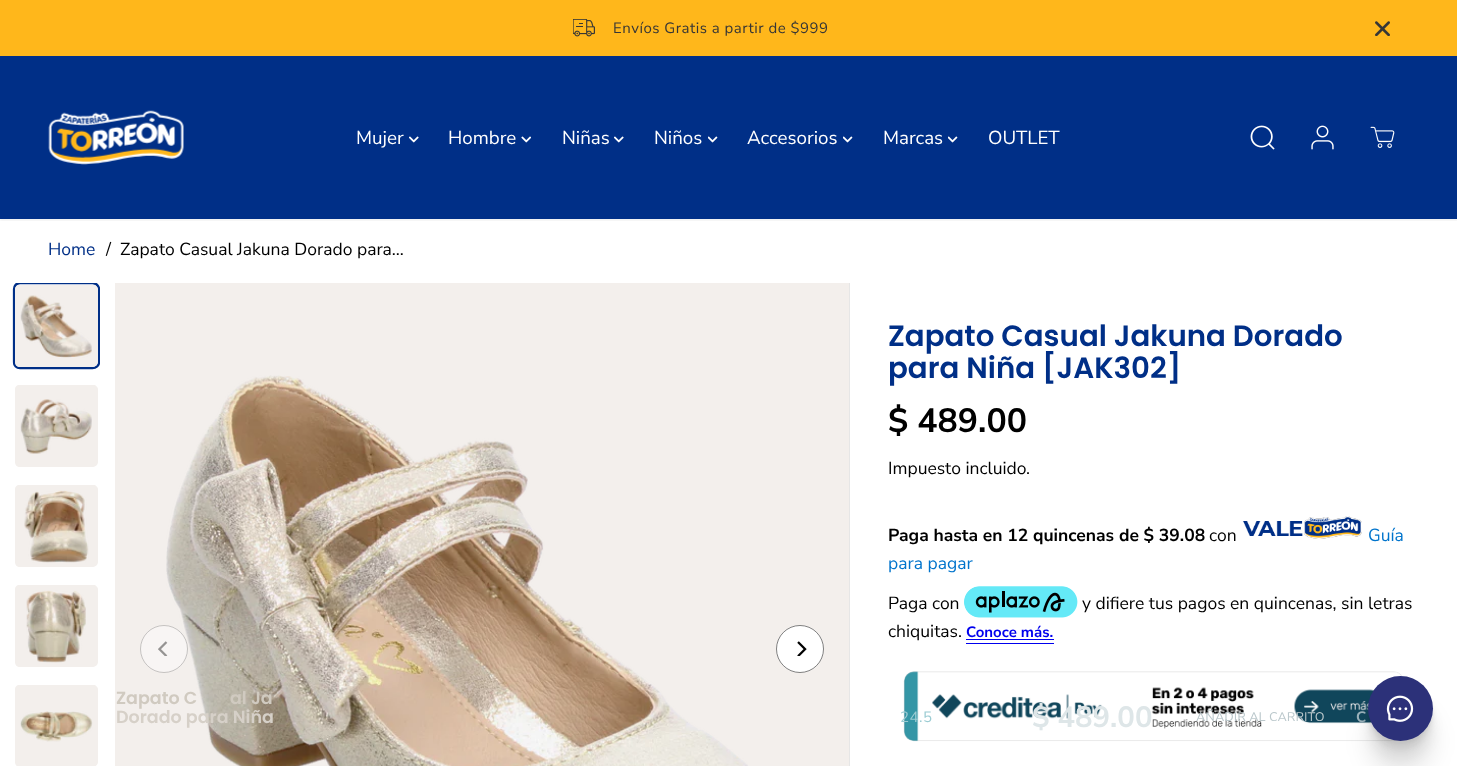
<svg xmlns="http://www.w3.org/2000/svg" width="1457" height="766" viewBox="0 0 1457 766">
  <defs>
    <clipPath id="clip1"><rect x="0" y="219" width="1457" height="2"/></clipPath>
    <filter id="blur1" x="-50%" y="-200%" width="200%" height="500%"><feGaussianBlur stdDeviation="1"/></filter>
    <clipPath id="clip2"><rect x="0" y="283" width="849" height="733"/></clipPath>
    <clipPath id="clip3"><path d="M100 282V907H12.5V282Z"/></clipPath>
    <filter id="blur2" x="-50%" y="-200%" width="200%" height="500%"><feGaussianBlur stdDeviation="12.5"/></filter>
    <filter id="blur3" x="-50%" y="-200%" width="200%" height="500%"><feGaussianBlur stdDeviation="6"/></filter>
    <filter id="blur4" x="-50%" y="-200%" width="200%" height="500%"><feGaussianBlur stdDeviation="2.5"/></filter>
  </defs>
  <rect width="100%" height="100%" fill="#ffffff"/>
  <rect x="0" y="56" width="1457" height="163" fill="#002f87"/>
  <g clip-path="url(#clip1)">
    <rect x="0" y="59" width="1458" height="162" fill="#000000" fill-opacity="0.05" filter="url(#blur1)"/>
  </g>
  <rect x="0" y="0" width="1457" height="56" fill="#ffb71b"/>
  <image x="573" y="19" width="22" height="18" href="img1.png"/>
  <text x="613" y="33" font-family="Nunito Sans" font-size="15" letter-spacing="0.5" fill="#363636">Envíos Gratis a partir de $999</text>
  <image x="1375" y="21" width="15" height="15" href="img2.png"/>
  <image x="48" y="110" width="136" height="55" href="img3.png"/>
  <text x="356" y="144" font-family="Nunito Sans" font-size="18.75" fill="#ffffff">Mujer</text>
  <image x="409" y="136" width="10" height="7" href="img4.png"/>
  <text x="448" y="144" font-family="Nunito Sans" font-size="18.75" fill="#ffffff">Hombre</text>
  <image x="521" y="136" width="10" height="7" href="img5.png"/>
  <text x="562" y="144" font-family="Nunito Sans" font-size="18.75" fill="#ffffff">Niñas</text>
  <image x="614" y="136" width="10" height="7" href="img4.png"/>
  <text x="654" y="144" font-family="Nunito Sans" font-size="18.75" fill="#ffffff">Niños</text>
  <image x="708" y="136" width="10" height="7" href="img6.png"/>
  <text x="747" y="144" font-family="Nunito Sans" font-size="18.75" fill="#ffffff">Accesorios</text>
  <image x="843" y="136" width="10" height="7" href="img6.png"/>
  <text x="883" y="144" font-family="Nunito Sans" font-size="18.75" fill="#ffffff">Marcas</text>
  <image x="948" y="136" width="10" height="7" href="img6.png"/>
  <text x="988" y="144" font-family="Nunito Sans" font-size="18.75" fill="#ffffff">OUTLET</text>
  <image x="1250" y="125" width="25" height="25" href="img7.png"/>
  <image x="1311" y="125" width="23" height="25" href="img8.png"/>
  <image x="1370" y="126" width="25" height="22" href="img9.png"/>
  <text x="48" y="255" font-family="Nunito Sans" font-size="17.5" fill="#002f87">Home</text>
  <text x="106" y="255" font-family="Nunito Sans" font-size="17.5" fill="#000000">/</text>
  <text x="120" y="255" font-family="Nunito Sans" font-size="17.5" fill="#000000">Zapato Casual Jakuna Dorado para...</text>
  <rect x="849" y="283" width="1" height="483" fill="#e6e6e6"/>
  <g clip-path="url(#clip2)">
    <g clip-path="url(#clip3)">
      <path d="M99 289.5V362C99 365.5 96 368 92.5 368H20C16.5 368 14 365.5 14 362V289.5C14 286 16.5 283 20 283H92.5C96 283 99 286 99 289.5Z" fill="none" stroke="#002f87" stroke-width="2.5"/>
    </g>
  </g>
  <path d="M98 289C98 287 96 286 95 285H18C16 286 15 287 15 289V362C15 365 17 367 20 367H92C95 367 98 365 98 362Z" fill="#f3efec"/>
  <image x="20" y="295" width="72" height="63" href="img10.png"/>
  <path d="M98 389C98 387 96 386 95 385H18C16 386 15 387 15 389V462C15 465 17 467 20 467H92C95 467 98 465 98 462Z" fill="#f3efec"/>
  <image x="20" y="399" width="72" height="55" href="img11.png"/>
  <path d="M98 489C98 487 96 486 95 485H18C16 486 15 487 15 489V562C15 565 17 567 20 567H92C95 567 98 565 98 562Z" fill="#f3efec"/>
  <image x="24" y="490" width="65" height="73" href="img12.png"/>
  <path d="M98 589C98 587 96 586 95 585H18C16 586 15 587 15 589V662C15 665 17 667 20 667H92C95 667 98 665 98 662Z" fill="#f3efec"/>
  <image x="26" y="590" width="60" height="73" href="img13.png"/>
  <path d="M98 689C98 687 96 686 95 685H18C16 686 15 687 15 689V762C15 765 17 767 20 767H92C95 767 98 765 98 762Z" fill="#f3efec"/>
  <image x="20" y="711" width="73" height="31" href="img14.png"/>
  <rect x="115" y="283" width="734" height="483" fill="#f3efec"/>
  <image x="166" y="375" width="582" height="391" href="img15.png"/>
  <circle cx="164" cy="649" r="24" fill="#f8f5f4"/>
  <circle cx="164" cy="649" r="23.5" fill="none" stroke="#928f8e" stroke-opacity="0.5"/>
  <image x="158" y="641" width="10" height="15" href="img16.png"/>
  <circle cx="800" cy="649" r="24" fill="#ffffff"/>
  <circle cx="800" cy="649" r="23.5" fill="none" stroke="#000000" stroke-opacity="0.5"/>
  <image x="797" y="641" width="10" height="15" href="img17.png"/>
  <text x="888" y="346" font-family="Poppins" font-size="29.25" font-weight="600" fill="#002f87">Zapato Casual Jakuna Dorado</text>
  <text x="888" y="378" font-family="Poppins" font-size="29.25" font-weight="600" fill="#002f87">para Niña [JAK302]</text>
  <text x="888" y="432" font-family="Nunito Sans" font-size="33.75" font-weight="bold" fill="#000000">$ 489.00</text>
  <text x="888" y="474" font-family="Nunito Sans" font-size="17.5" fill="#000000">Impuesto incluido.</text>
  <text x="888" y="541" font-family="Nunito Sans" font-size="17.5" font-weight="bold" fill="#000000">Paga hasta en 12 quincenas de $ 39.08</text>
  <text x="1209" y="541" font-family="Nunito Sans" font-size="17.5" fill="#000000">con</text>
  <image x="1242" y="516" width="120" height="23" href="img18.png"/>
  <text x="1368" y="541" font-family="Nunito Sans" font-size="17.5" fill="#0074cc">Guía</text>
  <text x="888" y="569" font-family="Nunito Sans" font-size="17.5" fill="#0074cc">para pagar</text>
  <text x="888" y="609" font-family="Nunito Sans" font-size="17.5" fill="#000000">Paga con</text>
  <image x="964" y="586" width="114" height="32" href="img19.png"/>
  <text x="1082" y="609" font-family="Nunito Sans" font-size="17.5" fill="#000000">y difiere tus pagos en quincenas, sin letras</text>
  <text x="888" y="637" font-family="Nunito Sans" font-size="17.5" fill="#000000">chiquitas.</text>
  <text x="966" y="637" font-family="Nunito Sans" font-size="15" font-weight="bold" fill="#0000ee">Conoce más.</text>
  <rect x="966" y="643" width="88" height="1" fill="#0000ee"/>
  <rect x="966" y="639" width="88" height="1" fill="#0000ee"/>
  <image x="903" y="671" width="500" height="71" href="img20.png"/>
  <text x="116" y="704" font-family="Poppins" font-size="17.5" font-weight="600" fill="#d0cac0">Zapato C</text>
  <text x="230" y="704" font-family="Poppins" font-size="17.5" font-weight="600" fill="#d0cac0">al Ja</text>
  <text x="116" y="723" font-family="Poppins" font-size="17.5" font-weight="600" fill="#d6d0c8">Dorado para Niña</text>
  <text x="900" y="722" font-family="Nunito Sans" font-size="15" letter-spacing="0.5" fill="#9cccd3">24.5</text>
  <text x="1032" y="727" font-family="Nunito Sans" font-size="29.25" font-weight="bold" fill="#dee6e8">$ 489.00</text>
  <text x="1196" y="721" font-family="'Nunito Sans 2'" font-size="12.5" fill="#bbc8cc">AÑADIR AL CARRITO</text>
  <text x="1356" y="722" font-family="Nunito Sans" font-size="15" font-weight="bold" letter-spacing="1" fill="#9ab1ba">C</text>
  <rect x="1368" y="708" width="65" height="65" rx="32.5" fill="#000000" fill-opacity="0.1" filter="url(#blur2)"/>
  <rect x="1368" y="693" width="65" height="65" rx="32.5" fill="#000000" fill-opacity="0.06" filter="url(#blur3)"/>
  <rect x="1368" y="684" width="65" height="65" rx="32.5" fill="#000000" fill-opacity="0.06" filter="url(#blur4)"/>
  <rect x="1368" y="679" width="65" height="65" rx="32.5" fill="#000000" fill-opacity="0.04" filter="url(#blur1)"/>
  <circle cx="1400.5" cy="708.5" r="32.5" fill="#2c3179"/>
  <image x="1386" y="695" width="28" height="27" href="img21.png"/>
</svg>
